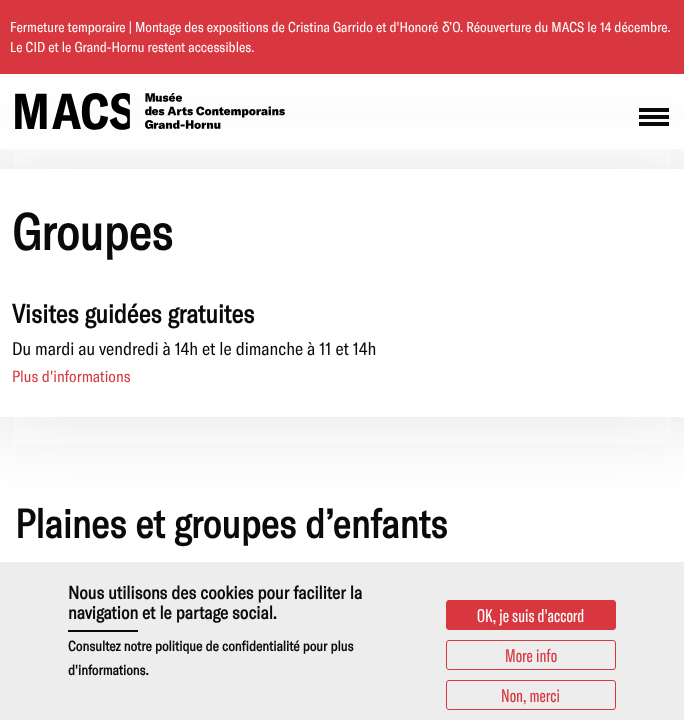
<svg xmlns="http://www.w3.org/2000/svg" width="684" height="720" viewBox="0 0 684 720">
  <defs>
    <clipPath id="clip1"><path d="M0 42H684V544H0ZM-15 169H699V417H-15Z" clip-rule="evenodd"/></clipPath>
    <filter id="blur1" x="-50%" y="-200%" width="200%" height="500%"><feGaussianBlur stdDeviation="42"/></filter>
  </defs>
  <rect width="100%" height="100%" fill="#ffffff"/>
  <rect x="0" y="0" width="684" height="74" fill="#d8373f"/>
  <text x="10" y="32" font-family="GT America" font-size="14" fill="#fefefe">Fermeture temporaire | Montage des expositions de Cristina Garrido et d'Honoré</text>
  <text x="442" y="32" font-family="Liberation Sans" font-size="14" fill="#fefefe">δ</text>
  <text x="449" y="32" font-family="GT America" font-size="14" fill="#fefefe">’O. Réouverture du MACS le 14 décembre.</text>
  <text x="10" y="52" font-family="GT America" font-size="14" fill="#fefefe">Le CID et le Grand-Hornu restent accessibles.</text>
  <g clip-path="url(#clip1)">
    <rect x="-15" y="169" width="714" height="248" fill="#454545" fill-opacity="0.15" filter="url(#blur1)"/>
  </g>
  <rect x="0" y="121" width="684" height="28" fill="#fefefe"/>
  <image x="15" y="93" width="270" height="37" href="img1.png"/>
  <rect x="639" y="108" width="30" height="4" fill="#0a0a0a"/>
  <rect x="639" y="115" width="30" height="4" fill="#0a0a0a"/>
  <rect x="639" y="122" width="30" height="4" fill="#0a0a0a"/>
  <text x="12" y="250" font-family="GT America" font-size="50" font-weight="bold" fill="#0a0a0a">Groupes</text>
  <text x="12" y="323" font-family="GT America" font-size="26" font-weight="bold" fill="#0a0a0a">Visites guidées gratuites</text>
  <text x="12" y="355" font-family="GT America" font-size="18" fill="#0a0a0a">Du mardi au vendredi à 14h et le dimanche à 11 et 14h</text>
  <text x="12" y="382" font-family="GT America" font-size="16" fill="#d8373f">Plus d'informations</text>
  <text x="15" y="538" font-family="GT America" font-size="40" font-weight="bold" fill="#0a0a0a">Plaines et groupes d’enfants</text>
  <rect x="0" y="562" width="684" height="158" fill="#ededed"/>
  <text x="68" y="599" font-family="GT America" font-size="18" font-weight="bold" fill="#0a0a0a">Nous utilisons des cookies pour faciliter la</text>
  <text x="68" y="619" font-family="GT America" font-size="18" font-weight="bold" fill="#0a0a0a">navigation et le partage social.</text>
  <rect x="68" y="630" width="70" height="2" fill="#0a0a0a"/>
  <text x="68" y="651" font-family="GT America" font-size="14" font-weight="bold" fill="#0a0a0a">Consultez notre politique de confidentialité pour plus</text>
  <text x="68" y="675" font-family="GT America" font-size="14" font-weight="bold" fill="#0a0a0a">d'informations.</text>
  <rect x="446.5" y="600.5" width="169" height="29" rx="2.5" fill="#d8373f" stroke="#d8373f"/>
  <text x="477" y="622" font-family="'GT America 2'" font-size="18" fill="#fefefe">OK, je suis d'accord</text>
  <rect x="446.5" y="640.5" width="169" height="29" rx="2.5" fill="none" stroke="#d8373f"/>
  <text x="505" y="662" font-family="'GT America 2'" font-size="18" fill="#d8373f">More info</text>
  <rect x="446.5" y="680.5" width="169" height="29" rx="2.5" fill="none" stroke="#d8373f"/>
  <text x="501" y="702" font-family="'GT America 2'" font-size="18" fill="#d8373f">Non, merci</text>
</svg>
